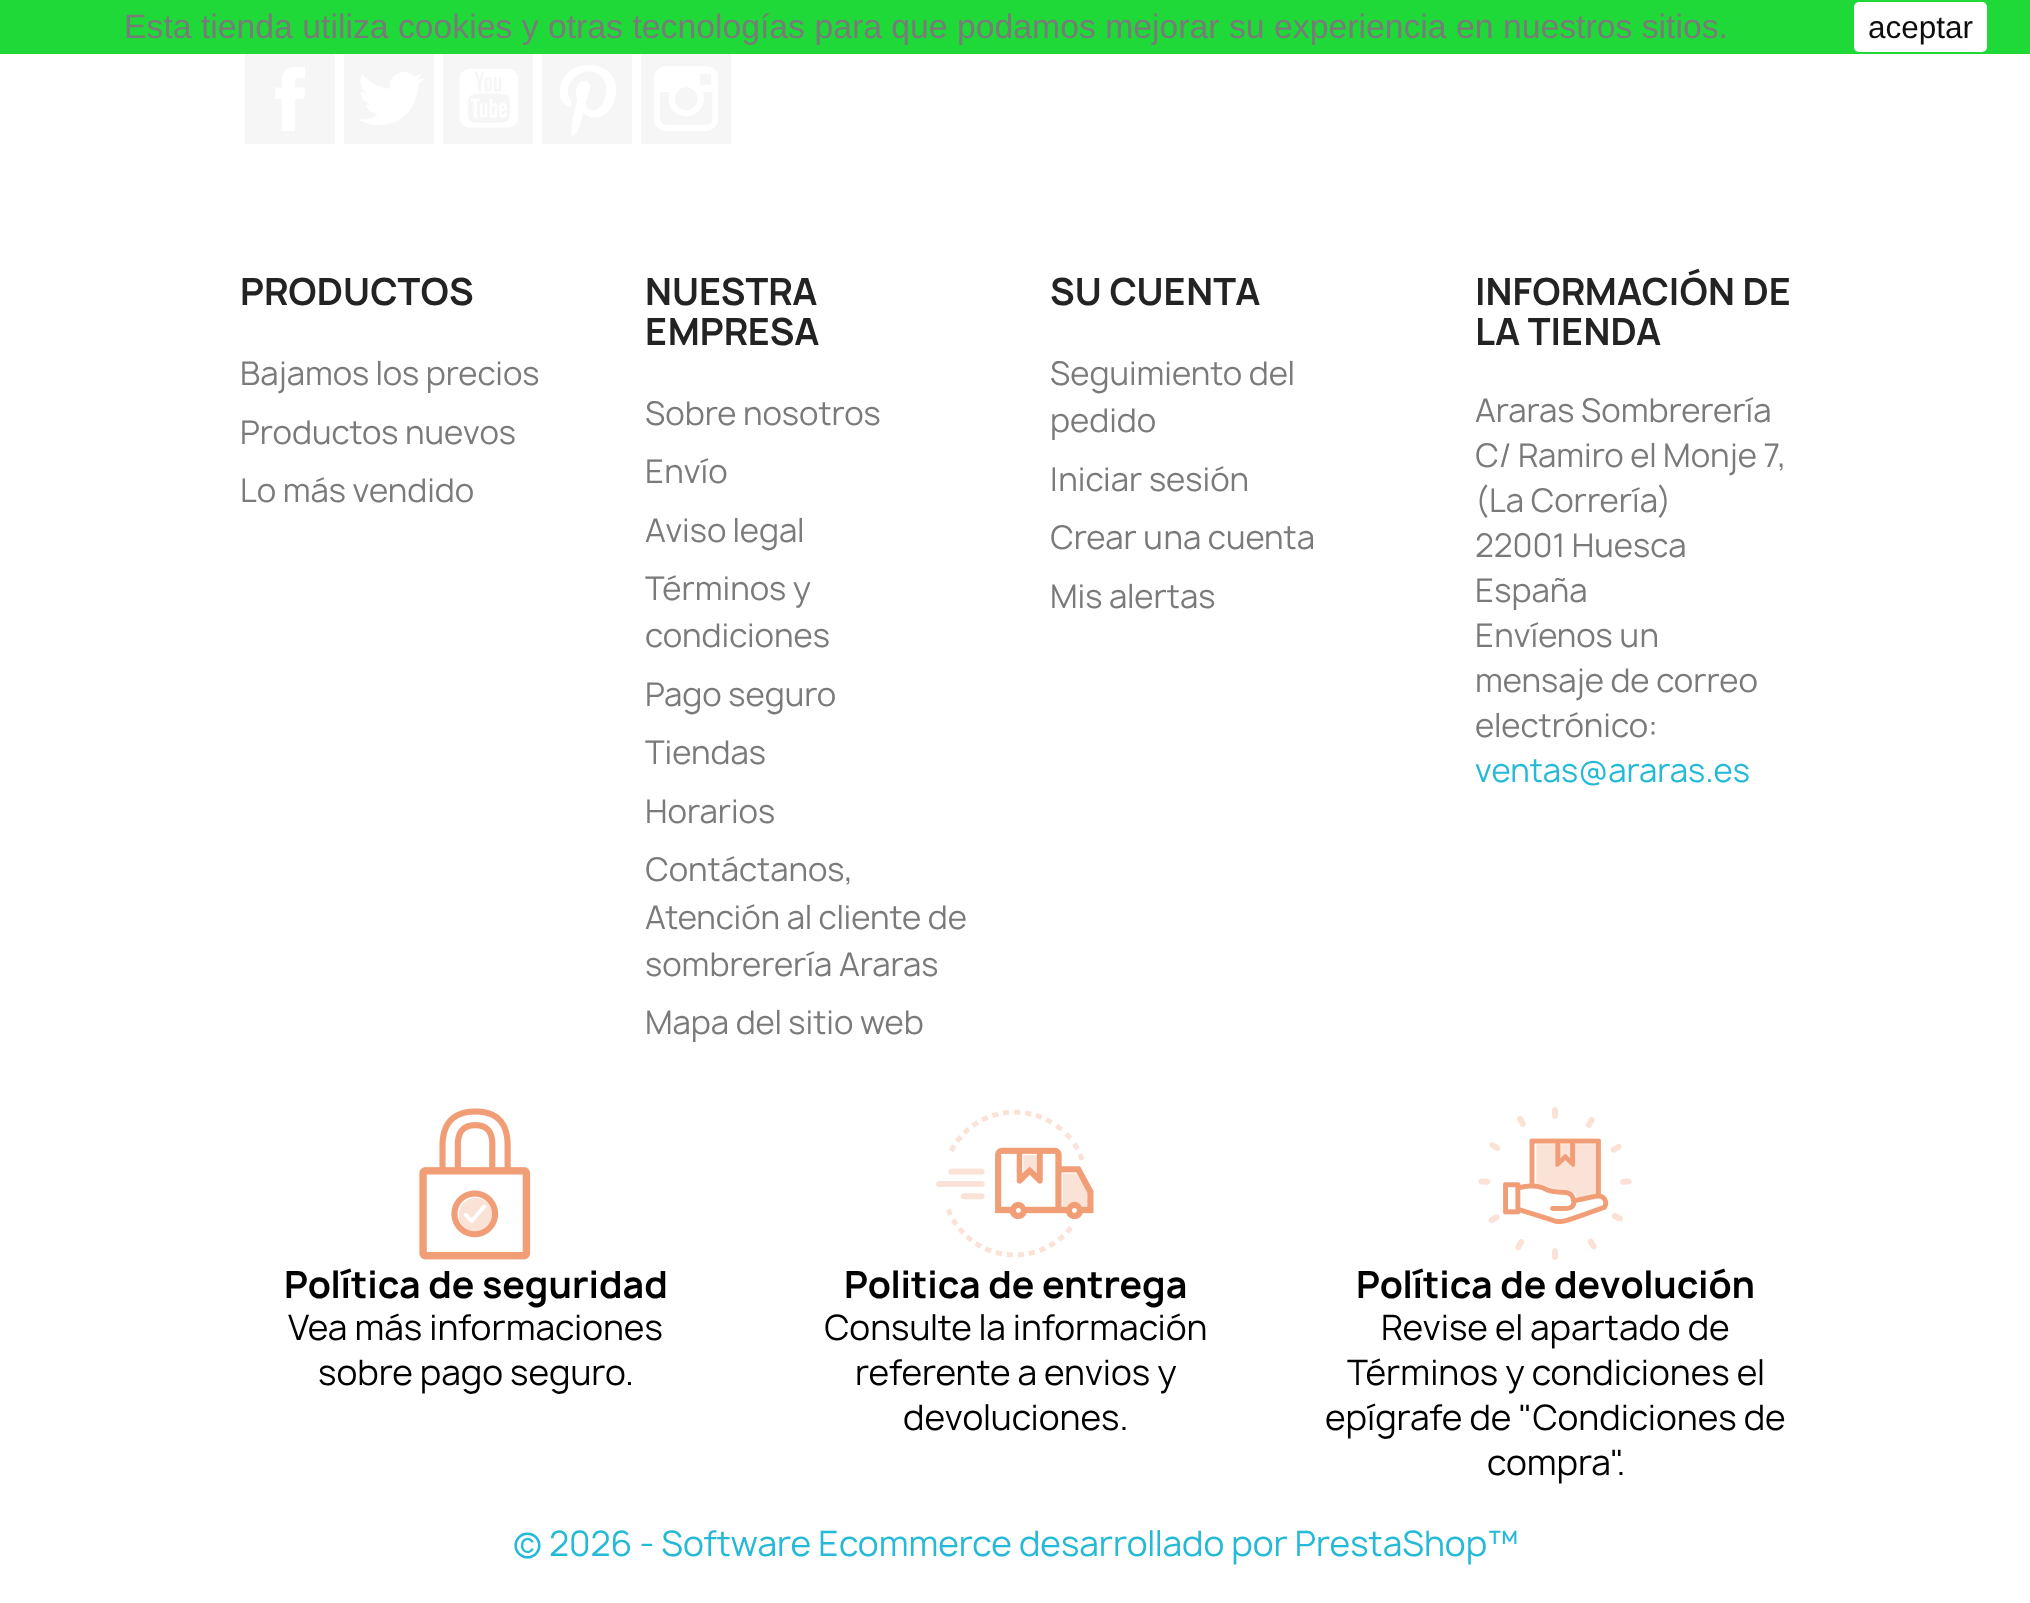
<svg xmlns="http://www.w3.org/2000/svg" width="2030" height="1603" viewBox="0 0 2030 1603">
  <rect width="100%" height="100%" fill="#ffffff"/>
  <rect x="0" y="0" width="2030" height="54" fill="#1ed937"/>
  <text x="124" y="38" font-family="Liberation Sans" font-size="33.75" fill="#7a7a7a">Esta tienda utiliza cookies y otras tecnologías para que podamos mejorar su experiencia en nuestros sitios.</text>
  <rect x="1854" y="2" width="133" height="50" rx="5" fill="#ffffff"/>
  <text x="1868" y="38" font-family="Liberation Sans" font-size="31.5" fill="#0d0d0d">aceptar</text>
  <text x="240" y="305" font-family="Manrope" font-size="36" font-weight="bold" fill="#232323">PRODUCTOS</text>
  <text x="240" y="385" font-family="Manrope" font-size="31.5" fill="#7a7a7a">Bajamos los precios</text>
  <text x="240" y="444" font-family="Manrope" font-size="31.5" fill="#7a7a7a">Productos nuevos</text>
  <text x="240" y="502" font-family="Manrope" font-size="31.5" fill="#7a7a7a">Lo más vendido</text>
  <text x="645" y="305" font-family="Manrope" font-size="36" font-weight="bold" fill="#232323">NUESTRA</text>
  <text x="645" y="345" font-family="Manrope" font-size="36" font-weight="bold" fill="#232323">EMPRESA</text>
  <text x="645" y="425" font-family="Manrope" font-size="31.5" fill="#7a7a7a">Sobre nosotros</text>
  <text x="645" y="483" font-family="Manrope" font-size="31.5" fill="#7a7a7a">Envío</text>
  <text x="645" y="542" font-family="Manrope" font-size="31.5" fill="#7a7a7a">Aviso legal</text>
  <text x="645" y="600" font-family="Manrope" font-size="31.5" fill="#7a7a7a">Términos y</text>
  <text x="645" y="647" font-family="Manrope" font-size="31.5" fill="#7a7a7a">condiciones</text>
  <text x="645" y="706" font-family="Manrope" font-size="31.5" fill="#7a7a7a">Pago seguro</text>
  <text x="645" y="764" font-family="Manrope" font-size="31.5" fill="#7a7a7a">Tiendas</text>
  <text x="645" y="823" font-family="Manrope" font-size="31.5" fill="#7a7a7a">Horarios</text>
  <text x="645" y="881" font-family="Manrope" font-size="31.5" fill="#7a7a7a">Contáctanos,</text>
  <text x="645" y="929" font-family="Manrope" font-size="31.5" fill="#7a7a7a">Atención al cliente de</text>
  <text x="645" y="976" font-family="Manrope" font-size="31.5" fill="#7a7a7a">sombrerería Araras</text>
  <text x="645" y="1034" font-family="Manrope" font-size="31.5" fill="#7a7a7a">Mapa del sitio web</text>
  <text x="1050" y="305" font-family="Manrope" font-size="36" font-weight="bold" fill="#232323">SU CUENTA</text>
  <text x="1050" y="385" font-family="Manrope" font-size="31.5" fill="#7a7a7a">Seguimiento del</text>
  <text x="1050" y="432" font-family="Manrope" font-size="31.5" fill="#7a7a7a">pedido</text>
  <text x="1050" y="491" font-family="Manrope" font-size="31.5" fill="#7a7a7a">Iniciar sesión</text>
  <text x="1050" y="549" font-family="Manrope" font-size="31.5" fill="#7a7a7a">Crear una cuenta</text>
  <text x="1050" y="608" font-family="Manrope" font-size="31.5" fill="#7a7a7a">Mis alertas</text>
  <text x="1475" y="305" font-family="Manrope" font-size="36" font-weight="bold" fill="#232323">INFORMACIÓN DE</text>
  <text x="1475" y="345" font-family="Manrope" font-size="36" font-weight="bold" fill="#232323">LA TIENDA</text>
  <text x="1475" y="422" font-family="Manrope" font-size="31.5" fill="#7a7a7a">Araras Sombrerería</text>
  <text x="1475" y="467" font-family="Manrope" font-size="31.5" fill="#7a7a7a">C/ Ramiro el Monje 7,</text>
  <text x="1475" y="512" font-family="Manrope" font-size="31.5" fill="#7a7a7a">(La Correría)</text>
  <text x="1475" y="557" font-family="Manrope" font-size="31.5" fill="#7a7a7a">22001 Huesca</text>
  <text x="1475" y="602" font-family="Manrope" font-size="31.5" fill="#7a7a7a">España</text>
  <text x="1475" y="647" font-family="Manrope" font-size="31.5" fill="#7a7a7a">Envíenos un</text>
  <text x="1475" y="692" font-family="Manrope" font-size="31.5" fill="#7a7a7a">mensaje de correo</text>
  <text x="1475" y="737" font-family="Manrope" font-size="31.5" fill="#7a7a7a">electrónico:</text>
  <text x="1475" y="782" font-family="Manrope" font-size="31.5" fill="#24b9d7">ventas@araras.es</text>
  <image x="419" y="1108" width="112" height="152" href="img1.png"/>
  <text x="284" y="1298" font-family="Manrope" font-size="36" font-weight="bold" fill="#000000">Política de seguridad</text>
  <text x="288" y="1340" font-family="Manrope" font-size="33.75" fill="#000000">Vea más informaciones</text>
  <text x="318" y="1385" font-family="Manrope" font-size="33.75" fill="#000000">sobre pago seguro.</text>
  <image x="936" y="1109" width="158" height="149" href="img2.png"/>
  <text x="844" y="1298" font-family="Manrope" font-size="36" font-weight="bold" fill="#000000">Politica de entrega</text>
  <text x="824" y="1340" font-family="Manrope" font-size="33.75" fill="#000000">Consulte la información</text>
  <text x="855" y="1385" font-family="Manrope" font-size="33.75" fill="#000000">referente a envios y</text>
  <text x="903" y="1430" font-family="Manrope" font-size="33.75" fill="#000000">devoluciones.</text>
  <image x="1478" y="1107" width="154" height="153" href="img3.png"/>
  <text x="1356" y="1298" font-family="Manrope" font-size="36" font-weight="bold" fill="#000000">Política de devolución</text>
  <text x="1381" y="1340" font-family="Manrope" font-size="33.75" fill="#000000">Revise el apartado de</text>
  <text x="1347" y="1385" font-family="Manrope" font-size="33.75" fill="#000000">Términos y condiciones el</text>
  <text x="1325" y="1430" font-family="Manrope" font-size="33.75" fill="#000000">epígrafe de "Condiciones de</text>
  <text x="1487" y="1475" font-family="Manrope" font-size="33.75" fill="#000000">compra".</text>
  <text x="513" y="1556" font-family="Manrope" font-size="33.75" fill="#24b9d7">© 2026 - Software Ecommerce desarrollado por PrestaShop™</text>
  <rect x="245" y="54" width="90" height="90" fill="#f6f6f6"/>
  <image x="275" y="67" width="30" height="64" href="img4.png"/>
  <rect x="344" y="54" width="90" height="90" fill="#f6f6f6"/>
  <image x="360" y="72" width="64" height="53" href="img5.png"/>
  <rect x="443" y="54" width="90" height="90" fill="#f6f6f6"/>
  <image x="459" y="68" width="59" height="60" href="img6.png"/>
  <rect x="542" y="54" width="90" height="90" fill="#f6f6f6"/>
  <image x="560" y="65" width="56" height="72" href="img7.png"/>
  <rect x="641" y="54" width="90" height="90" fill="#f6f6f6"/>
  <image x="654" y="66" width="64" height="65" href="img8.png"/>
</svg>
